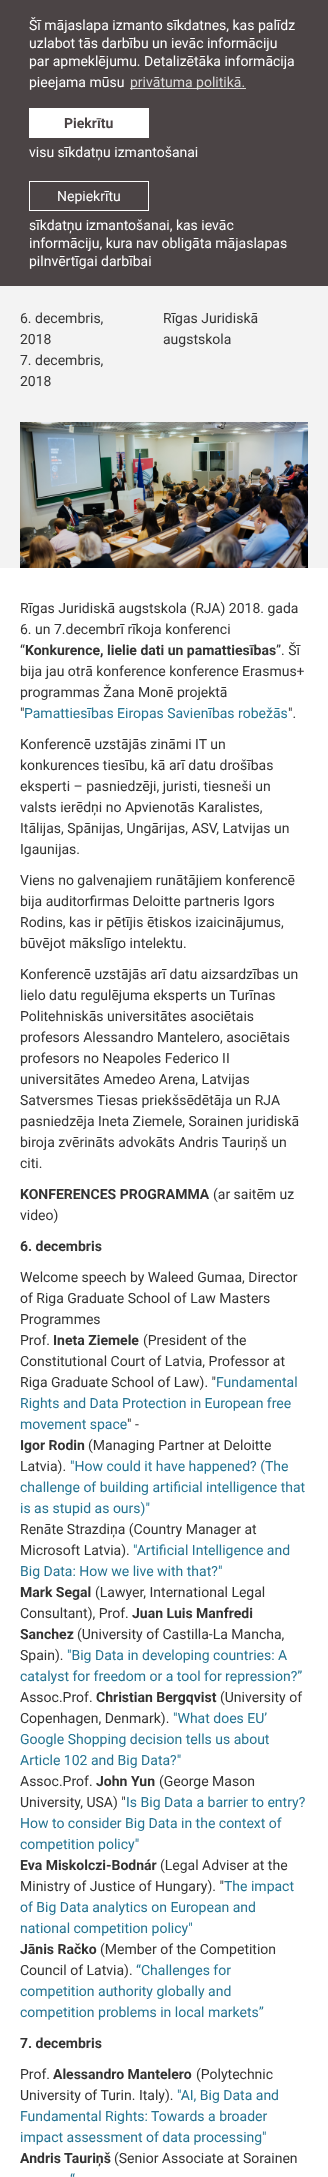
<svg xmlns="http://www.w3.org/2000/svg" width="328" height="2177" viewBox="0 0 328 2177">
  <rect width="100%" height="100%" fill="#ffffff"/>
  <rect x="0" y="0" width="328" height="286" fill="#4b4445"/>
  <text x="29" y="30" font-family="Roboto" font-size="14" fill="#ffffff">Šī mājaslapa izmanto sīkdatnes, kas palīdz</text>
  <text x="29" y="48" font-family="Roboto" font-size="14" fill="#ffffff">uzlabot tās darbību un ievāc informāciju</text>
  <text x="29" y="66" font-family="Roboto" font-size="14" fill="#ffffff">par apmeklējumu. Detalizētāka informācija</text>
  <text x="29" y="87" font-family="Roboto" font-size="14" fill="#ffffff">pieejama mūsu</text>
  <rect x="130" y="88" width="116" height="1" fill="#dbdada"/>
  <text x="130" y="87" font-family="Roboto" font-size="14" fill="#dbdada">privātuma politikā.</text>
  <rect x="29" y="108" width="120" height="30" fill="#ffffff"/>
  <text x="64" y="128" font-family="Roboto" font-size="14" font-weight="bold" fill="#4b4445">Piekrītu</text>
  <text x="29" y="157" font-family="Roboto" font-size="14" fill="#ffffff">visu sīkdatņu izmantošanai</text>
  <rect x="29.5" y="181.5" width="119" height="29" fill="none" stroke="#ffffff"/>
  <text x="57" y="201" font-family="Roboto" font-size="14" fill="#ffffff">Nepiekrītu</text>
  <text x="29" y="230" font-family="Roboto" font-size="14" fill="#ffffff">sīkdatņu izmantošanai, kas ievāc</text>
  <text x="29" y="248" font-family="Roboto" font-size="14" fill="#ffffff">informāciju, kura nav obligāta mājaslapas</text>
  <text x="29" y="266" font-family="Roboto" font-size="14" fill="#ffffff">pilnvērtīgai darbībai</text>
  <rect x="0" y="286" width="328" height="282" fill="#f3f3f3"/>
  <text x="20" y="323" font-family="Roboto" font-size="14" fill="#333333">6. decembris,</text>
  <text x="20" y="344" font-family="Roboto" font-size="14" fill="#333333">2018</text>
  <text x="20" y="365" font-family="Roboto" font-size="14" fill="#333333">7. decembris,</text>
  <text x="20" y="386" font-family="Roboto" font-size="14" fill="#333333">2018</text>
  <text x="163" y="323" font-family="Roboto" font-size="14" fill="#333333">Rīgas Juridiskā</text>
  <text x="163" y="344" font-family="Roboto" font-size="14" fill="#333333">augstskola</text>
  <image x="20" y="422" width="288" height="146" href="img1.png"/>
  <text x="20" y="613" font-family="Roboto" font-size="14" fill="#333333">Rīgas Juridiskā augstskola (RJA) 2018. gada</text>
  <text x="20" y="634" font-family="Roboto" font-size="14" fill="#333333">6. un 7.decembrī rīkoja konferenci</text>
  <text x="20" y="655" font-family="Roboto" font-size="14" fill="#333333">“</text>
  <text x="25" y="655" font-family="Roboto" font-size="14" font-weight="bold" fill="#333333">Konkurence, lielie dati un pamattiesības</text>
  <text x="276" y="655" font-family="Roboto" font-size="14" fill="#333333">”. Šī</text>
  <text x="20" y="676" font-family="Roboto" font-size="14" fill="#333333">bija jau otrā konference konference Erasmus+</text>
  <text x="20" y="697" font-family="Roboto" font-size="14" fill="#333333">programmas Žana Monē projektā</text>
  <text x="20" y="718" font-family="Roboto" font-size="14" fill="#333333">"</text>
  <text x="24" y="718" font-family="Roboto" font-size="14" fill="#257492">Pamattiesības Eiropas Savienības robežās</text>
  <text x="288" y="718" font-family="Roboto" font-size="14" fill="#333333">".</text>
  <text x="20" y="749" font-family="Roboto" font-size="14" fill="#333333">Konferencē uzstājās zināmi IT un</text>
  <text x="20" y="770" font-family="Roboto" font-size="14" fill="#333333">konkurences tiesību, kā arī datu drošības</text>
  <text x="20" y="791" font-family="Roboto" font-size="14" fill="#333333">eksperti – pasniedzēji, juristi, tiesneši un</text>
  <text x="20" y="812" font-family="Roboto" font-size="14" fill="#333333">valsts ierēdņi no Apvienotās Karalistes,</text>
  <text x="20" y="833" font-family="Roboto" font-size="14" fill="#333333">Itālijas, Spānijas, Ungārijas, ASV, Latvijas un</text>
  <text x="20" y="854" font-family="Roboto" font-size="14" fill="#333333">Igaunijas.</text>
  <text x="20" y="885" font-family="Roboto" font-size="14" fill="#333333">Viens no galvenajiem runātājiem konferencē</text>
  <text x="20" y="906" font-family="Roboto" font-size="14" fill="#333333">bija auditorfirmas Deloitte partneris Igors</text>
  <text x="20" y="927" font-family="Roboto" font-size="14" fill="#333333">Rodins, kas ir pētījis ētiskos izaicinājumus,</text>
  <text x="20" y="948" font-family="Roboto" font-size="14" fill="#333333">būvējot mākslīgo intelektu.</text>
  <text x="20" y="979" font-family="Roboto" font-size="14" fill="#333333">Konferencē uzstājās arī datu aizsardzības un</text>
  <text x="20" y="1000" font-family="Roboto" font-size="14" fill="#333333">lielo datu regulējuma eksperts un Turīnas</text>
  <text x="20" y="1021" font-family="Roboto" font-size="14" fill="#333333">Politehniskās universitātes asociētais</text>
  <text x="20" y="1042" font-family="Roboto" font-size="14" fill="#333333">profesors Alessandro Mantelero, asociētais</text>
  <text x="20" y="1063" font-family="Roboto" font-size="14" fill="#333333">profesors no Neapoles Federico II</text>
  <text x="20" y="1084" font-family="Roboto" font-size="14" fill="#333333">universitātes Amedeo Arena, Latvijas</text>
  <text x="20" y="1105" font-family="Roboto" font-size="14" fill="#333333">Satversmes Tiesas priekšsēdētāja un RJA</text>
  <text x="20" y="1126" font-family="Roboto" font-size="14" fill="#333333">pasniedzēja Ineta Ziemele, Sorainen juridiskā</text>
  <text x="20" y="1147" font-family="Roboto" font-size="14" fill="#333333">biroja zvērināts advokāts Andris Tauriņš un</text>
  <text x="20" y="1168" font-family="Roboto" font-size="14" fill="#333333">citi.</text>
  <text x="20" y="1199" font-family="Roboto" font-size="14" font-weight="bold" fill="#333333">KONFERENCES PROGRAMMA</text>
  <text x="213" y="1199" font-family="Roboto" font-size="14" fill="#333333">(ar saitēm uz</text>
  <text x="20" y="1220" font-family="Roboto" font-size="14" fill="#333333">video)</text>
  <text x="20" y="1251" font-family="Roboto" font-size="14" font-weight="bold" fill="#333333">6. decembris</text>
  <text x="20" y="1282" font-family="Roboto" font-size="14" fill="#333333">Welcome speech by Waleed Gumaa, Director</text>
  <text x="20" y="1303" font-family="Roboto" font-size="14" fill="#333333">of Riga Graduate School of Law Masters</text>
  <text x="20" y="1324" font-family="Roboto" font-size="14" fill="#333333">Programmes</text>
  <text x="20" y="1345" font-family="Roboto" font-size="14" fill="#333333">Prof.</text>
  <text x="53" y="1345" font-family="Roboto" font-size="14" font-weight="bold" fill="#333333">Ineta Ziemele</text>
  <text x="143" y="1345" font-family="Roboto" font-size="14" fill="#333333">(President of the</text>
  <text x="20" y="1366" font-family="Roboto" font-size="14" fill="#333333">Constitutional Court of Latvia, Professor at</text>
  <text x="20" y="1387" font-family="Roboto" font-size="14" fill="#333333">Riga Graduate School of Law). "</text>
  <text x="216" y="1387" font-family="Roboto" font-size="14" fill="#257492">Fundamental</text>
  <text x="20" y="1408" font-family="Roboto" font-size="14" fill="#257492">Rights and Data Protection in European free</text>
  <text x="20" y="1429" font-family="Roboto" font-size="14" fill="#257492">movement space</text>
  <text x="127" y="1429" font-family="Roboto" font-size="14" fill="#333333">" -</text>
  <text x="20" y="1450" font-family="Roboto" font-size="14" font-weight="bold" fill="#333333">Igor Rodin</text>
  <text x="88" y="1450" font-family="Roboto" font-size="14" fill="#333333">(Managing Partner at Deloitte</text>
  <text x="20" y="1471" font-family="Roboto" font-size="14" fill="#333333">Latvia).</text>
  <text x="70" y="1471" font-family="Roboto" font-size="14" fill="#257492">"How could it have happened? (The</text>
  <text x="20" y="1492" font-family="Roboto" font-size="14" fill="#257492">challenge of building artificial intelligence that</text>
  <text x="20" y="1513" font-family="Roboto" font-size="14" fill="#257492">is as stupid as ours)"</text>
  <text x="20" y="1534" font-family="Roboto" font-size="14" fill="#333333">Renāte Strazdiņa (Country Manager at</text>
  <text x="20" y="1555" font-family="Roboto" font-size="14" fill="#333333">Microsoft Latvia).</text>
  <text x="133" y="1555" font-family="Roboto" font-size="14" fill="#257492">"Artificial Intelligence and</text>
  <text x="20" y="1576" font-family="Roboto" font-size="14" fill="#257492">Big Data: How we live with that?"</text>
  <text x="20" y="1597" font-family="Roboto" font-size="14" font-weight="bold" fill="#333333">Mark Segal</text>
  <text x="95" y="1597" font-family="Roboto" font-size="14" fill="#333333">(Lawyer, International Legal</text>
  <text x="20" y="1618" font-family="Roboto" font-size="14" fill="#333333">Consultant), Prof.</text>
  <text x="132" y="1618" font-family="Roboto" font-size="14" font-weight="bold" fill="#333333">Juan Luis Manfredi</text>
  <text x="20" y="1639" font-family="Roboto" font-size="14" font-weight="bold" fill="#333333">Sanchez</text>
  <text x="77" y="1639" font-family="Roboto" font-size="14" fill="#333333">(University of Castilla-La Mancha,</text>
  <text x="20" y="1660" font-family="Roboto" font-size="14" fill="#333333">Spain).</text>
  <text x="67" y="1660" font-family="Roboto" font-size="14" fill="#257492">"Big Data in developing countries: A</text>
  <text x="20" y="1681" font-family="Roboto" font-size="14" fill="#257492">catalyst for freedom or a tool for repression?”</text>
  <text x="20" y="1702" font-family="Roboto" font-size="14" fill="#333333">Assoc.Prof.</text>
  <text x="96" y="1702" font-family="Roboto" font-size="14" font-weight="bold" fill="#333333">Christian Bergqvist</text>
  <text x="220" y="1702" font-family="Roboto" font-size="14" fill="#333333">(University of</text>
  <text x="20" y="1723" font-family="Roboto" font-size="14" fill="#333333">Copenhagen, Denmark).</text>
  <text x="173" y="1723" font-family="Roboto" font-size="14" fill="#257492">"What does EU’</text>
  <text x="20" y="1744" font-family="Roboto" font-size="14" fill="#257492">Google Shopping decision tells us about</text>
  <text x="20" y="1765" font-family="Roboto" font-size="14" fill="#257492">Article 102 and Big Data?"</text>
  <text x="20" y="1786" font-family="Roboto" font-size="14" fill="#333333">Assoc.Prof.</text>
  <text x="96" y="1786" font-family="Roboto" font-size="14" font-weight="bold" fill="#333333">John Yun</text>
  <text x="159" y="1786" font-family="Roboto" font-size="14" fill="#333333">(George Mason</text>
  <text x="20" y="1807" font-family="Roboto" font-size="14" fill="#333333">University, USA) "</text>
  <text x="126" y="1807" font-family="Roboto" font-size="14" fill="#257492">Is Big Data a barrier to entry?</text>
  <text x="20" y="1828" font-family="Roboto" font-size="14" fill="#257492">How to consider Big Data in the context of</text>
  <text x="20" y="1849" font-family="Roboto" font-size="14" fill="#257492">competition policy"</text>
  <text x="20" y="1870" font-family="Roboto" font-size="14" font-weight="bold" fill="#333333">Eva Miskolczi-Bodnár</text>
  <text x="160" y="1870" font-family="Roboto" font-size="14" fill="#333333">(Legal Adviser at the</text>
  <text x="20" y="1891" font-family="Roboto" font-size="14" fill="#333333">Ministry of Justice of Hungary). "</text>
  <text x="224" y="1891" font-family="Roboto" font-size="14" fill="#257492">The impact</text>
  <text x="20" y="1912" font-family="Roboto" font-size="14" fill="#257492">of Big Data analytics on European and</text>
  <text x="20" y="1933" font-family="Roboto" font-size="14" fill="#257492">national competition policy"</text>
  <text x="20" y="1954" font-family="Roboto" font-size="14" font-weight="bold" fill="#333333">Jānis Račko</text>
  <text x="100" y="1954" font-family="Roboto" font-size="14" fill="#333333">(Member of the Competition</text>
  <text x="20" y="1975" font-family="Roboto" font-size="14" fill="#333333">Council of Latvia).</text>
  <text x="136" y="1975" font-family="Roboto" font-size="14" fill="#257492">“Challenges for</text>
  <text x="20" y="1996" font-family="Roboto" font-size="14" fill="#257492">competition authority globally and</text>
  <text x="20" y="2017" font-family="Roboto" font-size="14" fill="#257492">competition problems in local markets”</text>
  <text x="20" y="2048" font-family="Roboto" font-size="14" font-weight="bold" fill="#333333">7. decembris</text>
  <text x="20" y="2079" font-family="Roboto" font-size="14" fill="#333333">Prof.</text>
  <text x="53" y="2079" font-family="Roboto" font-size="14" font-weight="bold" fill="#333333">Alessandro Mantelero</text>
  <text x="196" y="2079" font-family="Roboto" font-size="14" fill="#333333">(Polytechnic</text>
  <text x="20" y="2100" font-family="Roboto" font-size="14" fill="#333333">University of Turin. Italy).</text>
  <text x="177" y="2100" font-family="Roboto" font-size="14" fill="#257492">"AI, Big Data and</text>
  <text x="20" y="2121" font-family="Roboto" font-size="14" fill="#257492">Fundamental Rights: Towards a broader</text>
  <text x="20" y="2142" font-family="Roboto" font-size="14" fill="#257492">impact assessment of data processing"</text>
  <text x="20" y="2163" font-family="Roboto" font-size="14" font-weight="bold" fill="#333333">Andris Tauriņš</text>
  <text x="114" y="2163" font-family="Roboto" font-size="14" fill="#333333">(Senior Associate at Sorainen</text>
  <text x="70" y="2184" font-family="Roboto" font-size="14" fill="#257492">“</text>
</svg>
